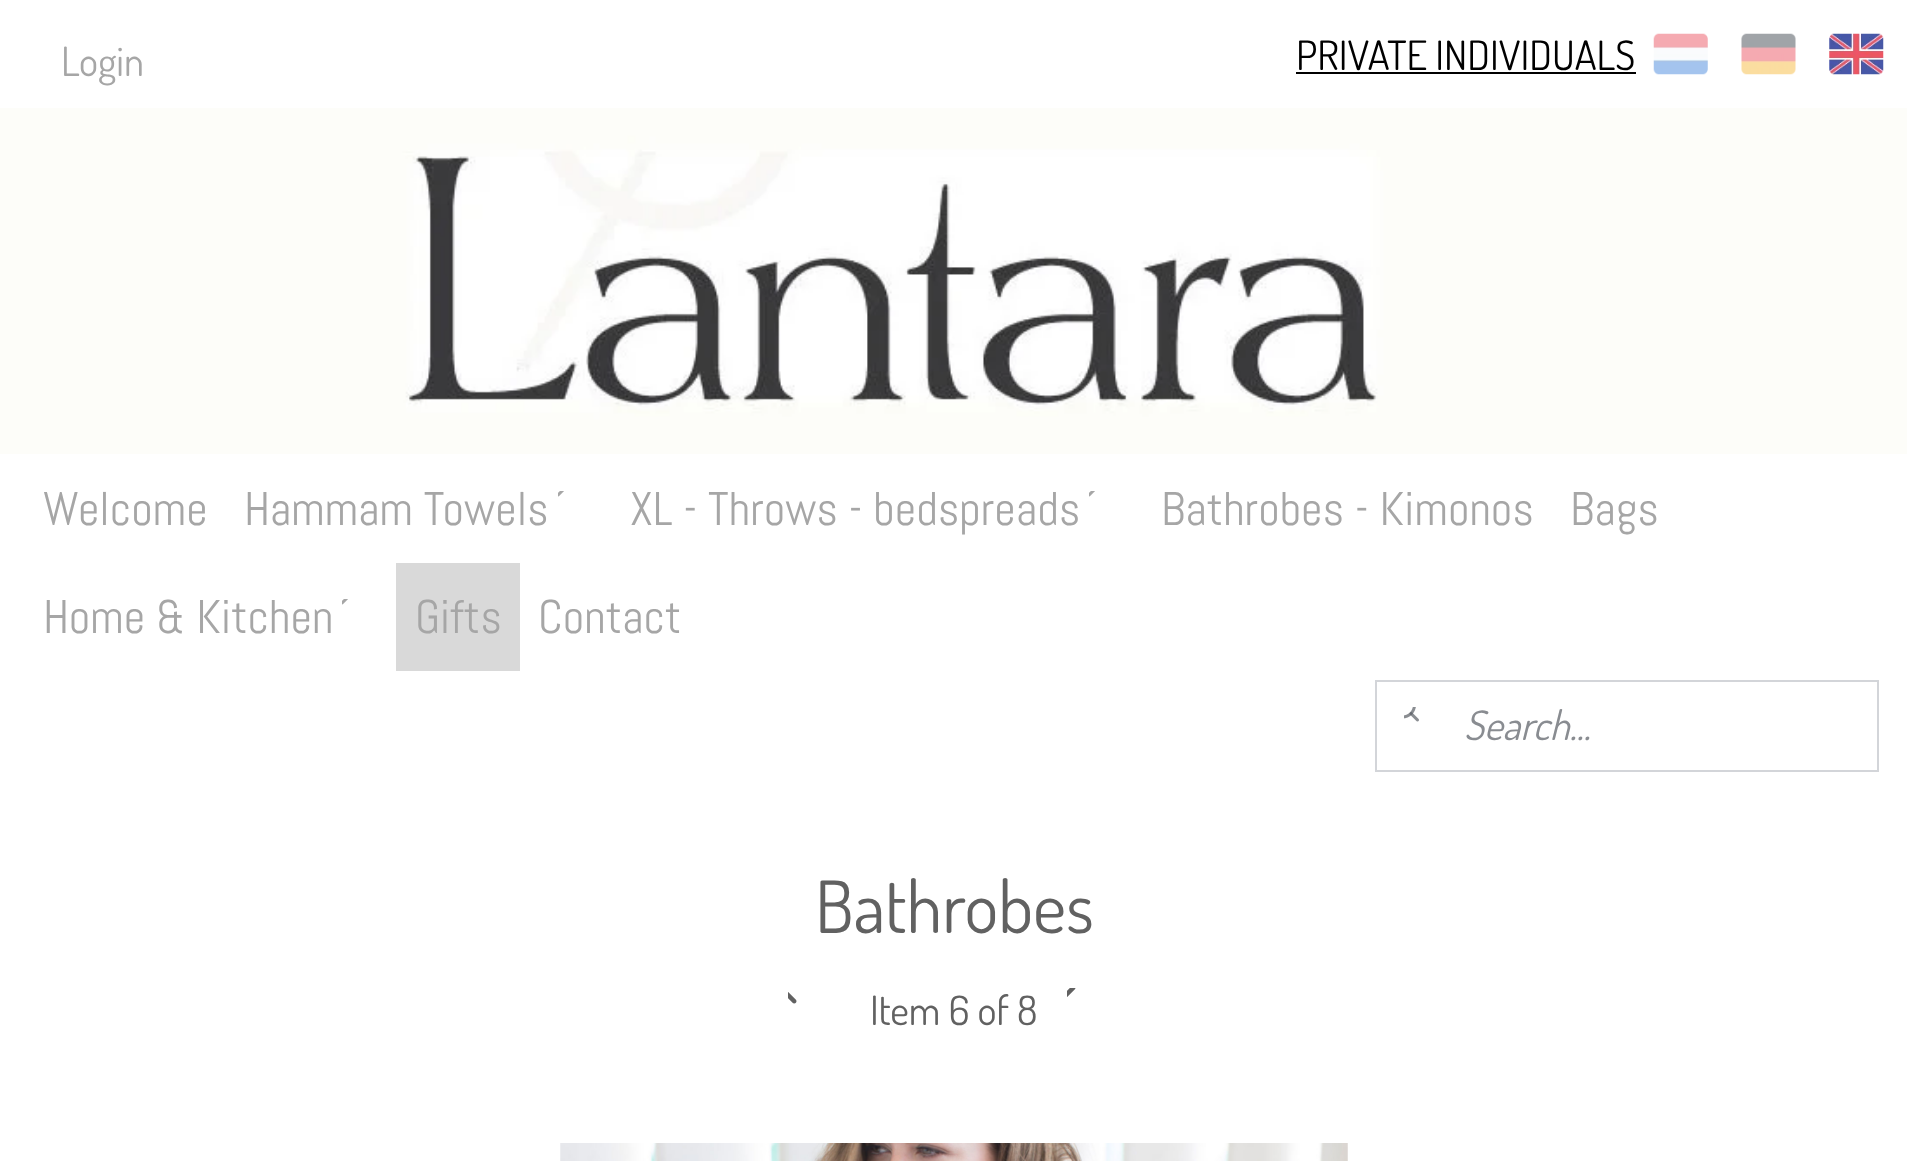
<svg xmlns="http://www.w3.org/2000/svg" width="1907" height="1161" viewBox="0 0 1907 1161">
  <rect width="100%" height="100%" fill="#ffffff"/>
  <text x="61" y="76" font-family="Dosis" font-size="40.5" fill="#a6a6a6">Login</text>
  <text x="1296" y="70" font-family="Dosis" font-size="40.5" fill="#000000">PRIVATE INDIVIDUALS</text>
  <rect x="1296" y="72" width="340" height="2" fill="#000000"/>
  <image x="1653" y="33" width="55" height="42" href="img1.png"/>
  <image x="1741" y="33" width="55" height="42" href="img2.png"/>
  <image x="1829" y="33" width="55" height="42" href="img3.png"/>
  <image x="0" y="108" width="1907" height="346" href="img4.png"/>
  <text x="43" y="525" font-family="Abel" font-size="47.25" fill="#a6a6a6">Welcome</text>
  <text x="244" y="525" font-family="Abel" font-size="47.25" fill="#a6a6a6">Hammam Towels</text>
  <image x="558" y="491" width="6" height="6" href="img5.png"/>
  <text x="630" y="525" font-family="Abel" font-size="47.25" fill="#a6a6a6">XL - Throws - bedspreads</text>
  <image x="1089" y="491" width="6" height="6" href="img5.png"/>
  <text x="1161" y="525" font-family="Abel" font-size="47.25" fill="#a6a6a6">Bathrobes - Kimonos</text>
  <text x="1570" y="525" font-family="Abel" font-size="47.25" fill="#a6a6a6">Bags</text>
  <text x="43" y="633" font-family="Abel" font-size="47.25" fill="#a6a6a6">Home &amp; Kitchen</text>
  <image x="342" y="599" width="6" height="6" href="img5.png"/>
  <rect x="396" y="563" width="124" height="108" fill="#d9d9d9"/>
  <text x="415" y="633" font-family="Abel" font-size="47.25" fill="#a6a6a6">Gifts</text>
  <text x="538" y="633" font-family="Abel" font-size="47.25" fill="#a6a6a6">Contact</text>
  <rect x="1376" y="681" width="502" height="90" fill="none" stroke="#d3d5d9" stroke-width="2"/>
  <image x="1404" y="707" width="15" height="15" href="img6.png"/>
  <text x="1464" y="740" font-family="Dosis" font-size="40.5" font-style="italic" fill="#898c91">Search...</text>
  <text x="815" y="933" font-family="Dosis" font-size="72" fill="#616161">Bathrobes</text>
  <image x="788" y="992" width="9" height="12" href="img7.png"/>
  <text x="870" y="1025" font-family="Dosis" font-size="40.5" fill="#616161">Item 6 of 8</text>
  <image x="1067" y="988" width="9" height="9" href="img8.png"/>
  <image x="560" y="1143" width="788" height="18" href="img9.png"/>
</svg>
